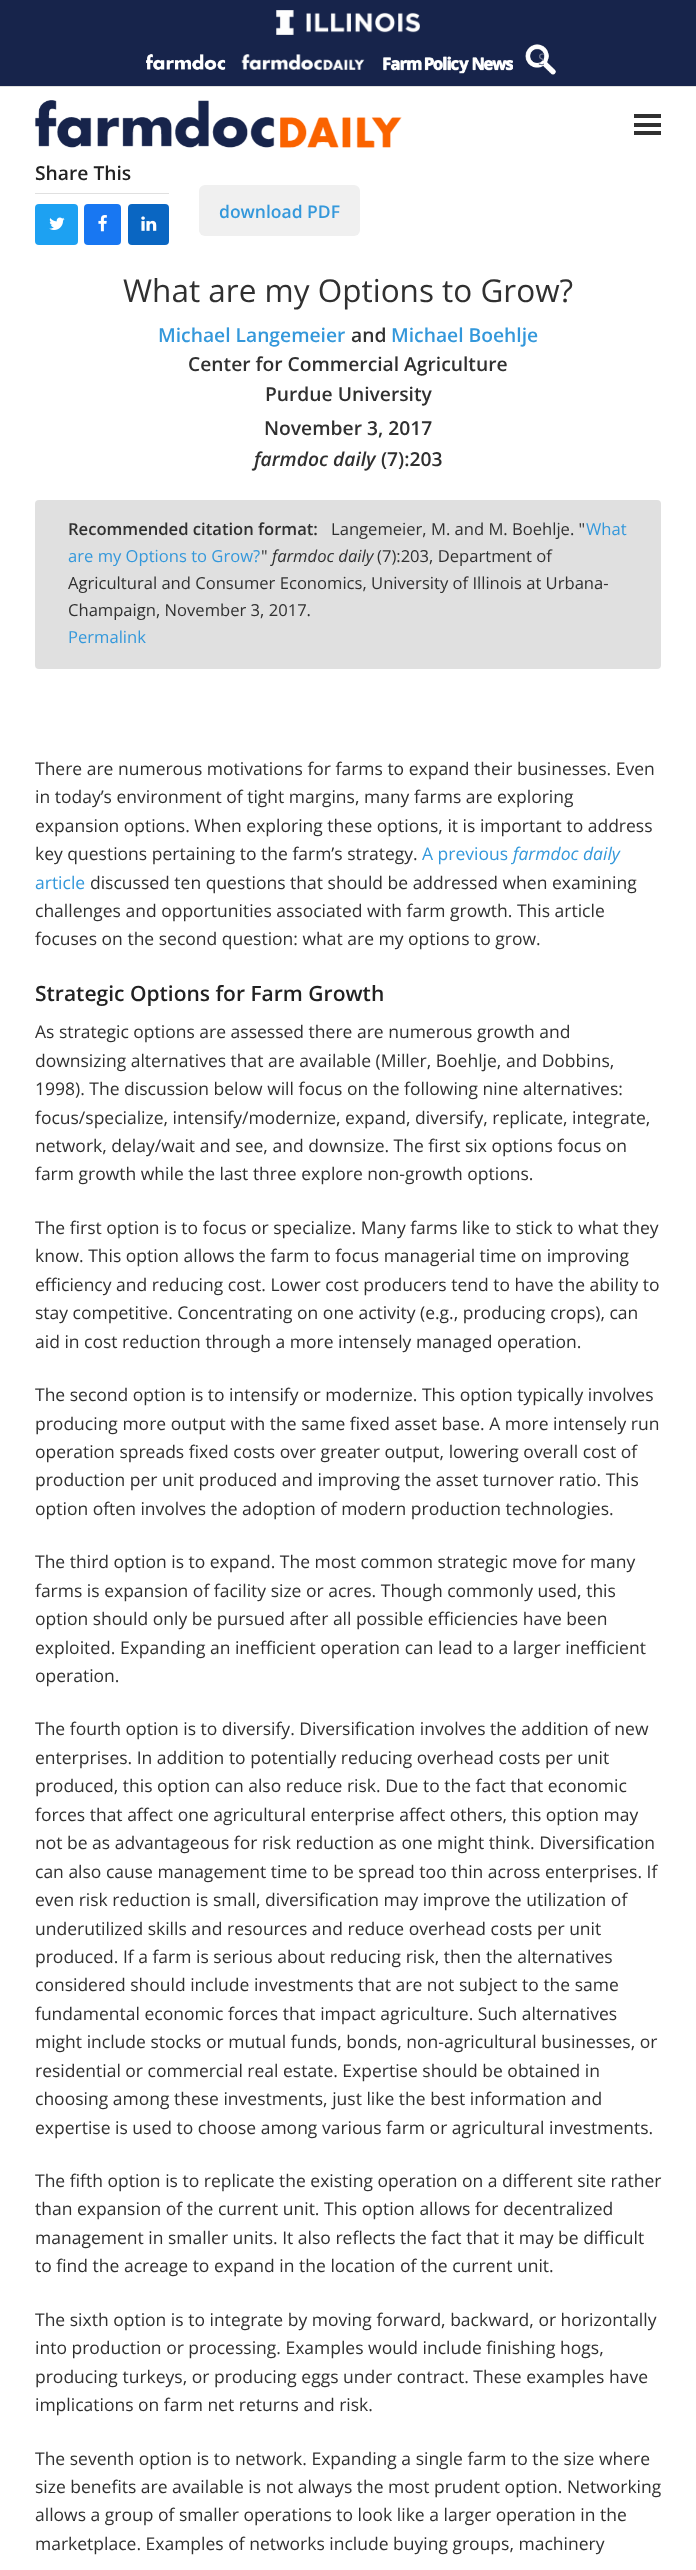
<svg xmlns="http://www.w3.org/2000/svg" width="696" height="2570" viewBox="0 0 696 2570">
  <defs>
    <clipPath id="clip1"><rect x="538" y="48" width="6" height="22"/></clipPath>
  </defs>
  <rect width="100%" height="100%" fill="#ffffff"/>
  <rect x="0" y="0" width="696" height="86" fill="#17244b"/>
  <rect x="0" y="86" width="696" height="1" fill="#e0e0e0"/>
  <image x="276" y="10" width="144" height="25" href="img1.png"/>
  <image x="146" y="54" width="80" height="16" href="img2.png"/>
  <image x="241" y="54" width="124" height="16" href="img3.png"/>
  <image x="383" y="56" width="130" height="18" href="img4.png"/>
  <image x="525" y="44" width="31" height="31" href="img5.png"/>
  <g clip-path="url(#clip1)">
    <text x="538" y="65" font-family="Open Sans" font-size="16" fill="#747b93">S</text>
  </g>
  <image x="35" y="100" width="367" height="48" href="img6.png"/>
  <rect x="634" y="123" width="27" height="4" fill="#303030"/>
  <rect x="634" y="114" width="27" height="4" fill="#303030"/>
  <rect x="634" y="131" width="27" height="4" fill="#303030"/>
  <rect x="35" y="193" width="134" height="1" fill="#e0e0e0"/>
  <text x="35" y="180" font-family="Open Sans" font-size="19.25" font-weight="600" fill="#222222">Share This</text>
  <rect x="35" y="204" width="43" height="41" rx="4" fill="#1da1f2"/>
  <image x="49" y="217" width="16" height="13" href="img7.png"/>
  <rect x="84" y="204" width="37" height="41" rx="4" fill="#1877f2"/>
  <image x="98" y="215" width="9" height="17" href="img8.png"/>
  <rect x="128" y="204" width="41" height="41" rx="4" fill="#0a66c2"/>
  <image x="141" y="216" width="16" height="15" href="img9.png"/>
  <rect x="199" y="185" width="161" height="51" rx="6" fill="#f0f0f0"/>
  <text x="219" y="218" font-family="Open Sans" font-size="17.5" font-weight="600" fill="#3498db">download PDF</text>
  <text x="123" y="302" font-family="Open Sans" font-size="31.5" fill="#303030">What are my Options to Grow?</text>
  <text x="158" y="342" font-family="Open Sans" font-size="19.25" font-weight="600" fill="#3498db">Michael Langemeier</text>
  <text x="351" y="342" font-family="Open Sans" font-size="19.25" font-weight="600" fill="#303030">and</text>
  <text x="391" y="342" font-family="Open Sans" font-size="19.25" font-weight="600" fill="#3498db">Michael Boehlje</text>
  <text x="188" y="371" font-family="Open Sans" font-size="19.25" font-weight="600" fill="#303030">Center for Commercial Agriculture</text>
  <text x="265" y="401" font-family="Open Sans" font-size="19.25" font-weight="600" fill="#303030">Purdue University</text>
  <text x="264" y="435" font-family="Open Sans" font-size="19.25" font-weight="600" fill="#303030">November 3, 2017</text>
  <text x="254" y="466" font-family="Open Sans" font-size="19.25" font-weight="600" font-style="italic" fill="#303030">farmdoc daily</text>
  <text x="381" y="466" font-family="Open Sans" font-size="19.25" font-weight="600" fill="#303030">(7):203</text>
  <rect x="35" y="500" width="626" height="169" rx="4" fill="#e0e0e0"/>
  <text x="331" y="535" font-family="Open Sans" font-size="16.6" fill="#303030">Langemeier, M. and M. Boehlje. "</text>
  <text x="586" y="535" font-family="Open Sans" font-size="16.6" fill="#3498db">What</text>
  <text x="68" y="562" font-family="Open Sans" font-size="16.6" fill="#3498db">are my Options to Grow?</text>
  <text x="261" y="562" font-family="Open Sans" font-size="16.6" fill="#303030">"</text>
  <text x="272" y="562" font-family="Open Sans" font-size="16.6" font-style="italic" fill="#303030">farmdoc daily</text>
  <text x="377" y="562" font-family="Open Sans" font-size="16.6" fill="#303030">(7):203, Department of</text>
  <text x="68" y="589" font-family="Open Sans" font-size="16.6" fill="#303030">Agricultural and Consumer Economics, University of Illinois at Urbana-</text>
  <text x="68" y="616" font-family="Open Sans" font-size="16.6" fill="#303030">Champaign, November 3, 2017.</text>
  <text x="68" y="643" font-family="Open Sans" font-size="16.6" fill="#3498db">Permalink</text>
  <text x="68" y="535" font-family="Open Sans" font-size="16.6" font-weight="600" fill="#303030">Recommended citation format:</text>
  <text x="35" y="775" font-family="Open Sans" font-size="17.5" fill="#303030">There are numerous motivations for farms to expand their businesses. Even</text>
  <text x="35" y="803" font-family="Open Sans" font-size="17.5" fill="#303030">in today’s environment of tight margins, many farms are exploring</text>
  <text x="35" y="832" font-family="Open Sans" font-size="17.5" fill="#303030">expansion options. When exploring these options, it is important to address</text>
  <text x="35" y="860" font-family="Open Sans" font-size="17.5" fill="#303030">key questions pertaining to the farm’s strategy.</text>
  <text x="422" y="860" font-family="Open Sans" font-size="17.5" fill="#3498db">A previous</text>
  <text x="513" y="860" font-family="Open Sans" font-size="17.5" font-style="italic" fill="#3498db">farmdoc daily</text>
  <text x="35" y="889" font-family="Open Sans" font-size="17.5" fill="#3498db">article</text>
  <text x="90" y="889" font-family="Open Sans" font-size="17.5" fill="#303030">discussed ten questions that should be addressed when examining</text>
  <text x="35" y="917" font-family="Open Sans" font-size="17.5" fill="#303030">challenges and opportunities associated with farm growth. This article</text>
  <text x="35" y="945" font-family="Open Sans" font-size="17.5" fill="#303030">focuses on the second question: what are my options to grow.</text>
  <text x="35" y="1001" font-family="Open Sans" font-size="21" font-weight="600" fill="#222222">Strategic Options for Farm Growth</text>
  <text x="35" y="1038" font-family="Open Sans" font-size="17.5" fill="#303030">As strategic options are assessed there are numerous growth and</text>
  <text x="35" y="1067" font-family="Open Sans" font-size="17.5" fill="#303030">downsizing alternatives that are available (Miller, Boehlje, and Dobbins,</text>
  <text x="35" y="1095" font-family="Open Sans" font-size="17.5" fill="#303030">1998). The discussion below will focus on the following nine alternatives:</text>
  <text x="35" y="1124" font-family="Open Sans" font-size="17.5" fill="#303030">focus/specialize, intensify/modernize, expand, diversify, replicate, integrate,</text>
  <text x="35" y="1152" font-family="Open Sans" font-size="17.5" fill="#303030">network, delay/wait and see, and downsize. The first six options focus on</text>
  <text x="35" y="1180" font-family="Open Sans" font-size="17.5" fill="#303030">farm growth while the last three explore non-growth options.</text>
  <text x="35" y="1234" font-family="Open Sans" font-size="17.5" fill="#303030">The first option is to focus or specialize. Many farms like to stick to what they</text>
  <text x="35" y="1262" font-family="Open Sans" font-size="17.5" fill="#303030">know. This option allows the farm to focus managerial time on improving</text>
  <text x="35" y="1291" font-family="Open Sans" font-size="17.5" fill="#303030">efficiency and reducing cost. Lower cost producers tend to have the ability to</text>
  <text x="35" y="1319" font-family="Open Sans" font-size="17.5" fill="#303030">stay competitive. Concentrating on one activity (e.g., producing crops), can</text>
  <text x="35" y="1348" font-family="Open Sans" font-size="17.5" fill="#303030">aid in cost reduction through a more intensely managed operation.</text>
  <text x="35" y="1401" font-family="Open Sans" font-size="17.5" fill="#303030">The second option is to intensify or modernize. This option typically involves</text>
  <text x="35" y="1430" font-family="Open Sans" font-size="17.5" fill="#303030">producing more output with the same fixed asset base. A more intensely run</text>
  <text x="35" y="1458" font-family="Open Sans" font-size="17.5" fill="#303030">operation spreads fixed costs over greater output, lowering overall cost of</text>
  <text x="35" y="1486" font-family="Open Sans" font-size="17.5" fill="#303030">production per unit produced and improving the asset turnover ratio. This</text>
  <text x="35" y="1515" font-family="Open Sans" font-size="17.5" fill="#303030">option often involves the adoption of modern production technologies.</text>
  <text x="35" y="1568" font-family="Open Sans" font-size="17.5" fill="#303030">The third option is to expand. The most common strategic move for many</text>
  <text x="35" y="1597" font-family="Open Sans" font-size="17.5" fill="#303030">farms is expansion of facility size or acres. Though commonly used, this</text>
  <text x="35" y="1625" font-family="Open Sans" font-size="17.5" fill="#303030">option should only be pursued after all possible efficiencies have been</text>
  <text x="35" y="1654" font-family="Open Sans" font-size="17.5" fill="#303030">exploited. Expanding an inefficient operation can lead to a larger inefficient</text>
  <text x="35" y="1682" font-family="Open Sans" font-size="17.5" fill="#303030">operation.</text>
  <text x="35" y="1735" font-family="Open Sans" font-size="17.5" fill="#303030">The fourth option is to diversify. Diversification involves the addition of new</text>
  <text x="35" y="1764" font-family="Open Sans" font-size="17.5" fill="#303030">enterprises. In addition to potentially reducing overhead costs per unit</text>
  <text x="35" y="1792" font-family="Open Sans" font-size="17.5" fill="#303030">produced, this option can also reduce risk. Due to the fact that economic</text>
  <text x="35" y="1821" font-family="Open Sans" font-size="17.5" fill="#303030">forces that affect one agricultural enterprise affect others, this option may</text>
  <text x="35" y="1849" font-family="Open Sans" font-size="17.5" fill="#303030">not be as advantageous for risk reduction as one might think. Diversification</text>
  <text x="35" y="1878" font-family="Open Sans" font-size="17.5" fill="#303030">can also cause management time to be spread too thin across enterprises. If</text>
  <text x="35" y="1906" font-family="Open Sans" font-size="17.5" fill="#303030">even risk reduction is small, diversification may improve the utilization of</text>
  <text x="35" y="1935" font-family="Open Sans" font-size="17.5" fill="#303030">underutilized skills and resources and reduce overhead costs per unit</text>
  <text x="35" y="1963" font-family="Open Sans" font-size="17.5" fill="#303030">produced. If a farm is serious about reducing risk, then the alternatives</text>
  <text x="35" y="1991" font-family="Open Sans" font-size="17.5" fill="#303030">considered should include investments that are not subject to the same</text>
  <text x="35" y="2020" font-family="Open Sans" font-size="17.5" fill="#303030">fundamental economic forces that impact agriculture. Such alternatives</text>
  <text x="35" y="2048" font-family="Open Sans" font-size="17.5" fill="#303030">might include stocks or mutual funds, bonds, non-agricultural businesses, or</text>
  <text x="35" y="2077" font-family="Open Sans" font-size="17.5" fill="#303030">residential or commercial real estate. Expertise should be obtained in</text>
  <text x="35" y="2105" font-family="Open Sans" font-size="17.5" fill="#303030">choosing among these investments, just like the best information and</text>
  <text x="35" y="2134" font-family="Open Sans" font-size="17.5" fill="#303030">expertise is used to choose among various farm or agricultural investments.</text>
  <text x="35" y="2187" font-family="Open Sans" font-size="17.5" fill="#303030">The fifth option is to replicate the existing operation on a different site rather</text>
  <text x="35" y="2215" font-family="Open Sans" font-size="17.5" fill="#303030">than expansion of the current unit. This option allows for decentralized</text>
  <text x="35" y="2244" font-family="Open Sans" font-size="17.5" fill="#303030">management in smaller units. It also reflects the fact that it may be difficult</text>
  <text x="35" y="2272" font-family="Open Sans" font-size="17.5" fill="#303030">to find the acreage to expand in the location of the current unit.</text>
  <text x="35" y="2326" font-family="Open Sans" font-size="17.5" fill="#303030">The sixth option is to integrate by moving forward, backward, or horizontally</text>
  <text x="35" y="2354" font-family="Open Sans" font-size="17.5" fill="#303030">into production or processing. Examples would include finishing hogs,</text>
  <text x="35" y="2383" font-family="Open Sans" font-size="17.5" fill="#303030">producing turkeys, or producing eggs under contract. These examples have</text>
  <text x="35" y="2411" font-family="Open Sans" font-size="17.5" fill="#303030">implications on farm net returns and risk.</text>
  <text x="35" y="2465" font-family="Open Sans" font-size="17.5" fill="#303030">The seventh option is to network. Expanding a single farm to the size where</text>
  <text x="35" y="2493" font-family="Open Sans" font-size="17.5" fill="#303030">size benefits are available is not always the most prudent option. Networking</text>
  <text x="35" y="2521" font-family="Open Sans" font-size="17.5" fill="#303030">allows a group of smaller operations to look like a larger operation in the</text>
  <text x="35" y="2550" font-family="Open Sans" font-size="17.5" fill="#303030">marketplace. Examples of networks include buying groups, machinery</text>
</svg>
